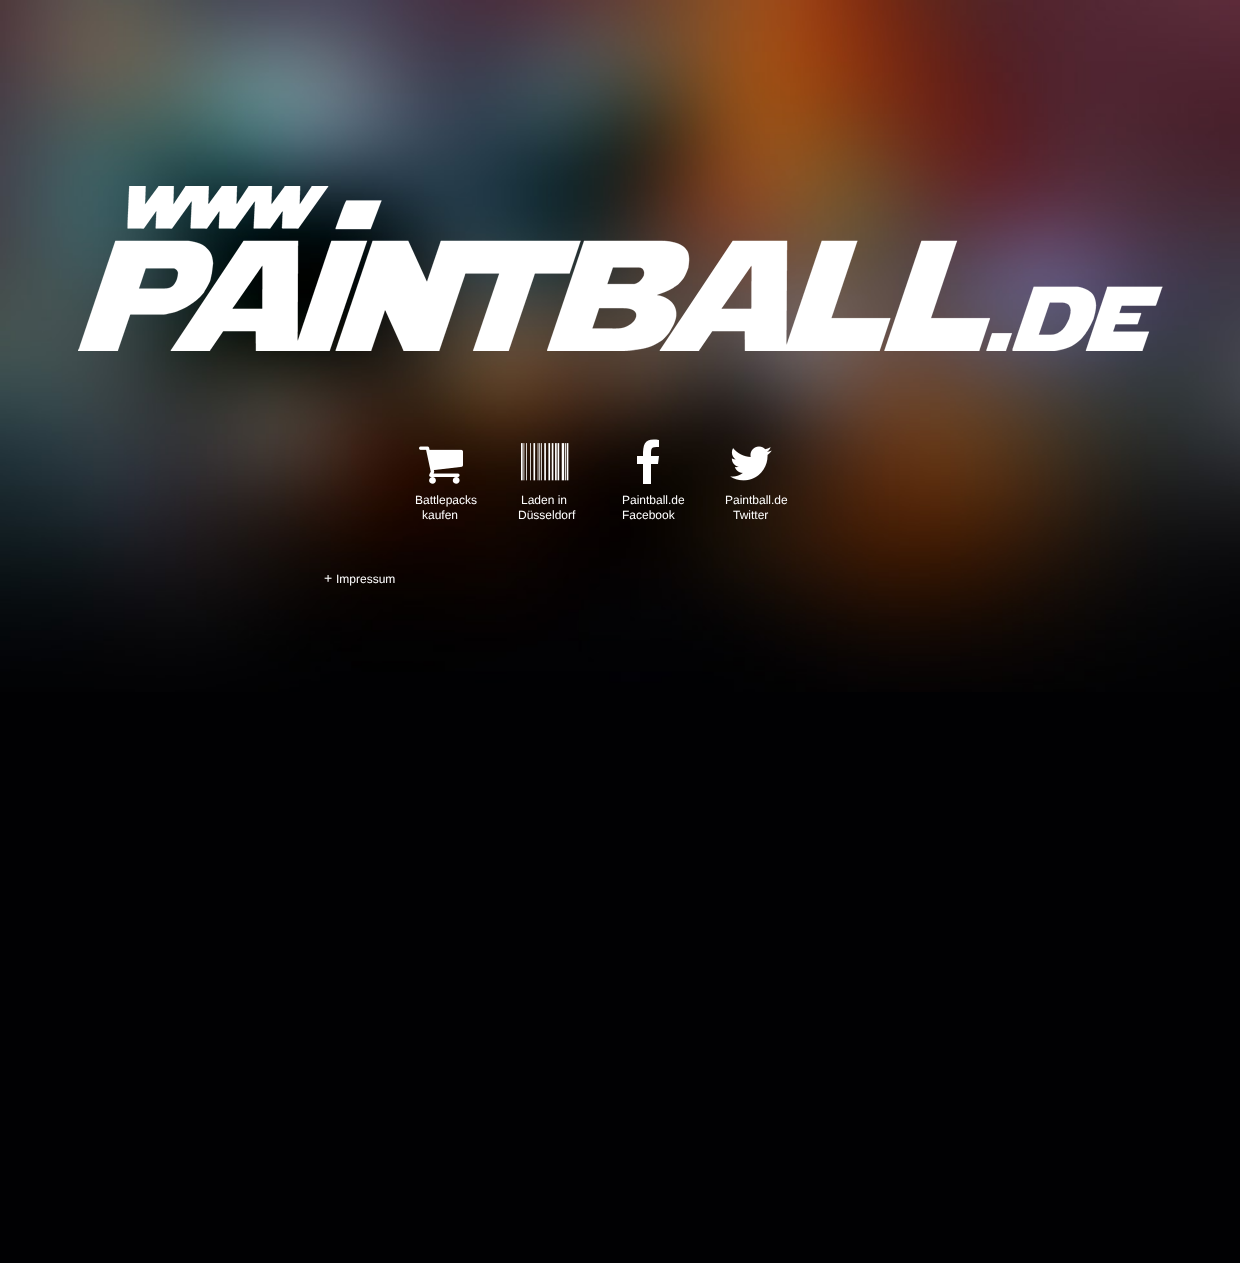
<svg xmlns="http://www.w3.org/2000/svg" width="1240" height="1263" viewBox="0 0 1240 1263">
  <rect width="100%" height="100%" fill="#010103"/>
  <image x="0" y="0" width="1240" height="692" href="img1.png"/>
  <image x="78" y="186" width="1085" height="165" href="img2.png"/>
  <image x="419" y="446" width="44" height="38" href="img3.png"/>
  <text x="415" y="504" font-family="Liberation Sans" font-size="12" fill="#ffffff">Battlepacks</text>
  <text x="422" y="519" font-family="Liberation Sans" font-size="12" fill="#ffffff">kaufen</text>
  <image x="521" y="443" width="48" height="38" href="img4.png"/>
  <text x="521" y="504" font-family="Liberation Sans" font-size="12" fill="#ffffff">Laden in</text>
  <text x="518" y="519" font-family="Liberation Sans" font-size="12" fill="#ffffff">Düsseldorf</text>
  <path d="M637 464V456H643C643 443 645 438 659 440V447C651 447 651 447 651 456H659L658 464H651V484H643V464Z" fill="#ffffff"/>
  <text x="622" y="504" font-family="Liberation Sans" font-size="12" fill="#ffffff">Paintball.de</text>
  <text x="622" y="519" font-family="Liberation Sans" font-size="12" fill="#ffffff">Facebook</text>
  <image x="730" y="446" width="42" height="35" href="img5.png"/>
  <text x="725" y="504" font-family="Liberation Sans" font-size="12" fill="#ffffff">Paintball.de</text>
  <text x="733" y="519" font-family="Liberation Sans" font-size="12" fill="#ffffff">Twitter</text>
  <text x="324" y="583" font-family="Liberation Sans" font-size="14" fill="#ffffff">+</text>
  <text x="336" y="583" font-family="Liberation Sans" font-size="12" fill="#ffffff">Impressum</text>
</svg>
